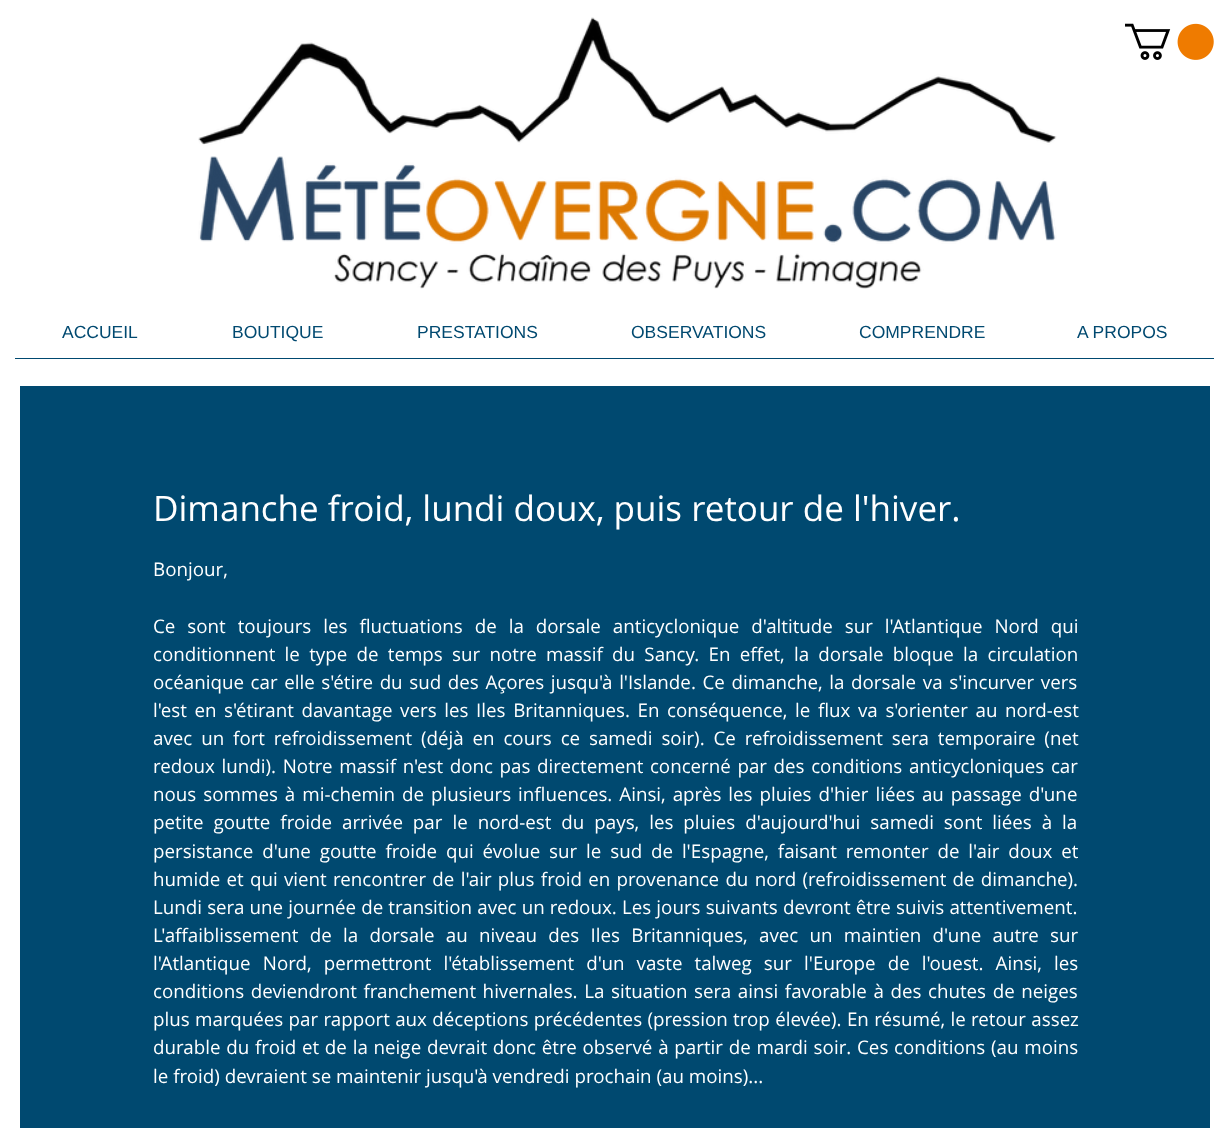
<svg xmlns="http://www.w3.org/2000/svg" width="1229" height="1128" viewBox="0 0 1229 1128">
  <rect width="100%" height="100%" fill="#ffffff"/>
  <image x="198" y="17" width="859" height="272" href="img1.png"/>
  <image x="1125" y="23" width="89" height="37" href="img2.png"/>
  <text x="62" y="338" font-family="Liberation Sans" font-size="17.5" fill="#004970">ACCUEIL</text>
  <text x="232" y="338" font-family="Liberation Sans" font-size="17.5" fill="#004970">BOUTIQUE</text>
  <text x="417" y="338" font-family="Liberation Sans" font-size="17.5" fill="#004970">PRESTATIONS</text>
  <text x="631" y="338" font-family="Liberation Sans" font-size="17.5" fill="#004970">OBSERVATIONS</text>
  <text x="859" y="338" font-family="Liberation Sans" font-size="17.5" fill="#004970">COMPRENDRE</text>
  <text x="1077" y="338" font-family="Liberation Sans" font-size="17.5" fill="#004970">A PROPOS</text>
  <rect x="15" y="358" width="1199" height="1" fill="#004970"/>
  <rect x="20" y="386" width="1190" height="742" fill="#004970"/>
  <text x="153" y="521" font-family="Open Sans" font-size="35" fill="#ffffff">Dimanche froid, lundi doux, puis retour de l'hiver.</text>
  <text x="153" y="576" font-family="Open Sans" font-size="18.75" fill="#ffffff">Bonjour,</text>
  <text x="153" y="633" word-spacing="7.1" font-family="Open Sans" font-size="18.75" fill="#ffffff">Ce sont toujours les fluctuations de la dorsale anticyclonique d'altitude sur l'Atlantique Nord qui</text>
  <text x="153" y="661" word-spacing="4.4" font-family="Open Sans" font-size="18.75" fill="#ffffff">conditionnent le type de temps sur notre massif du Sancy. En effet, la dorsale bloque la circulation</text>
  <text x="153" y="689" word-spacing="1.75" font-family="Open Sans" font-size="18.75" fill="#ffffff">océanique car elle s'étire du sud des Açores jusqu'à l'Islande. Ce dimanche, la dorsale va s'incurver vers</text>
  <text x="153" y="717" word-spacing="2.75" font-family="Open Sans" font-size="18.75" fill="#ffffff">l'est en s'étirant davantage vers les Iles Britanniques. En conséquence, le flux va s'orienter au nord-est</text>
  <text x="153" y="745" word-spacing="4" font-family="Open Sans" font-size="18.75" fill="#ffffff">avec un fort refroidissement (déjà en cours ce samedi soir). Ce refroidissement sera temporaire (net</text>
  <text x="153" y="773" word-spacing="1.75" font-family="Open Sans" font-size="18.75" fill="#ffffff">redoux lundi). Notre massif n'est donc pas directement concerné par des conditions anticycloniques car</text>
  <text x="153" y="801" word-spacing="2.1" font-family="Open Sans" font-size="18.75" fill="#ffffff">nous sommes à mi-chemin de plusieurs influences. Ainsi, après les pluies d'hier liées au passage d'une</text>
  <text x="153" y="829" word-spacing="5.1" font-family="Open Sans" font-size="18.75" fill="#ffffff">petite goutte froide arrivée par le nord-est du pays, les pluies d'aujourd'hui samedi sont liées à la</text>
  <text x="153" y="858" word-spacing="4" font-family="Open Sans" font-size="18.75" fill="#ffffff">persistance d'une goutte froide qui évolue sur le sud de l'Espagne, faisant remonter de l'air doux et</text>
  <text x="153" y="886" word-spacing="1.4" font-family="Open Sans" font-size="18.75" fill="#ffffff">humide et qui vient rencontrer de l'air plus froid en provenance du nord (refroidissement de dimanche).</text>
  <text x="153" y="914" word-spacing="0.3" font-family="Open Sans" font-size="18.75" fill="#ffffff">Lundi sera une journée de transition avec un redoux. Les jours suivants devront être suivis attentivement.</text>
  <text x="153" y="942" word-spacing="6.4" font-family="Open Sans" font-size="18.75" fill="#ffffff">L'affaiblissement de la dorsale au niveau des Iles Britanniques, avec un maintien d'une autre sur</text>
  <text x="153" y="970" word-spacing="7.25" font-family="Open Sans" font-size="18.75" fill="#ffffff">l'Atlantique Nord, permettront l'établissement d'un vaste talweg sur l'Europe de l'ouest. Ainsi, les</text>
  <text x="153" y="998" word-spacing="1.75" font-family="Open Sans" font-size="18.75" fill="#ffffff">conditions deviendront franchement hivernales. La situation sera ainsi favorable à des chutes de neiges</text>
  <text x="153" y="1026" word-spacing="0.5" font-family="Open Sans" font-size="18.75" fill="#ffffff">plus marquées par rapport aux déceptions précédentes (pression trop élevée). En résumé, le retour assez</text>
  <text x="153" y="1054" word-spacing="0.9" font-family="Open Sans" font-size="18.75" fill="#ffffff">durable du froid et de la neige devrait donc être observé à partir de mardi soir. Ces conditions (au moins</text>
  <text x="153" y="1083" font-family="Open Sans" font-size="18.75" fill="#ffffff">le froid) devraient se maintenir jusqu'à vendredi prochain (au moins)...</text>
</svg>
